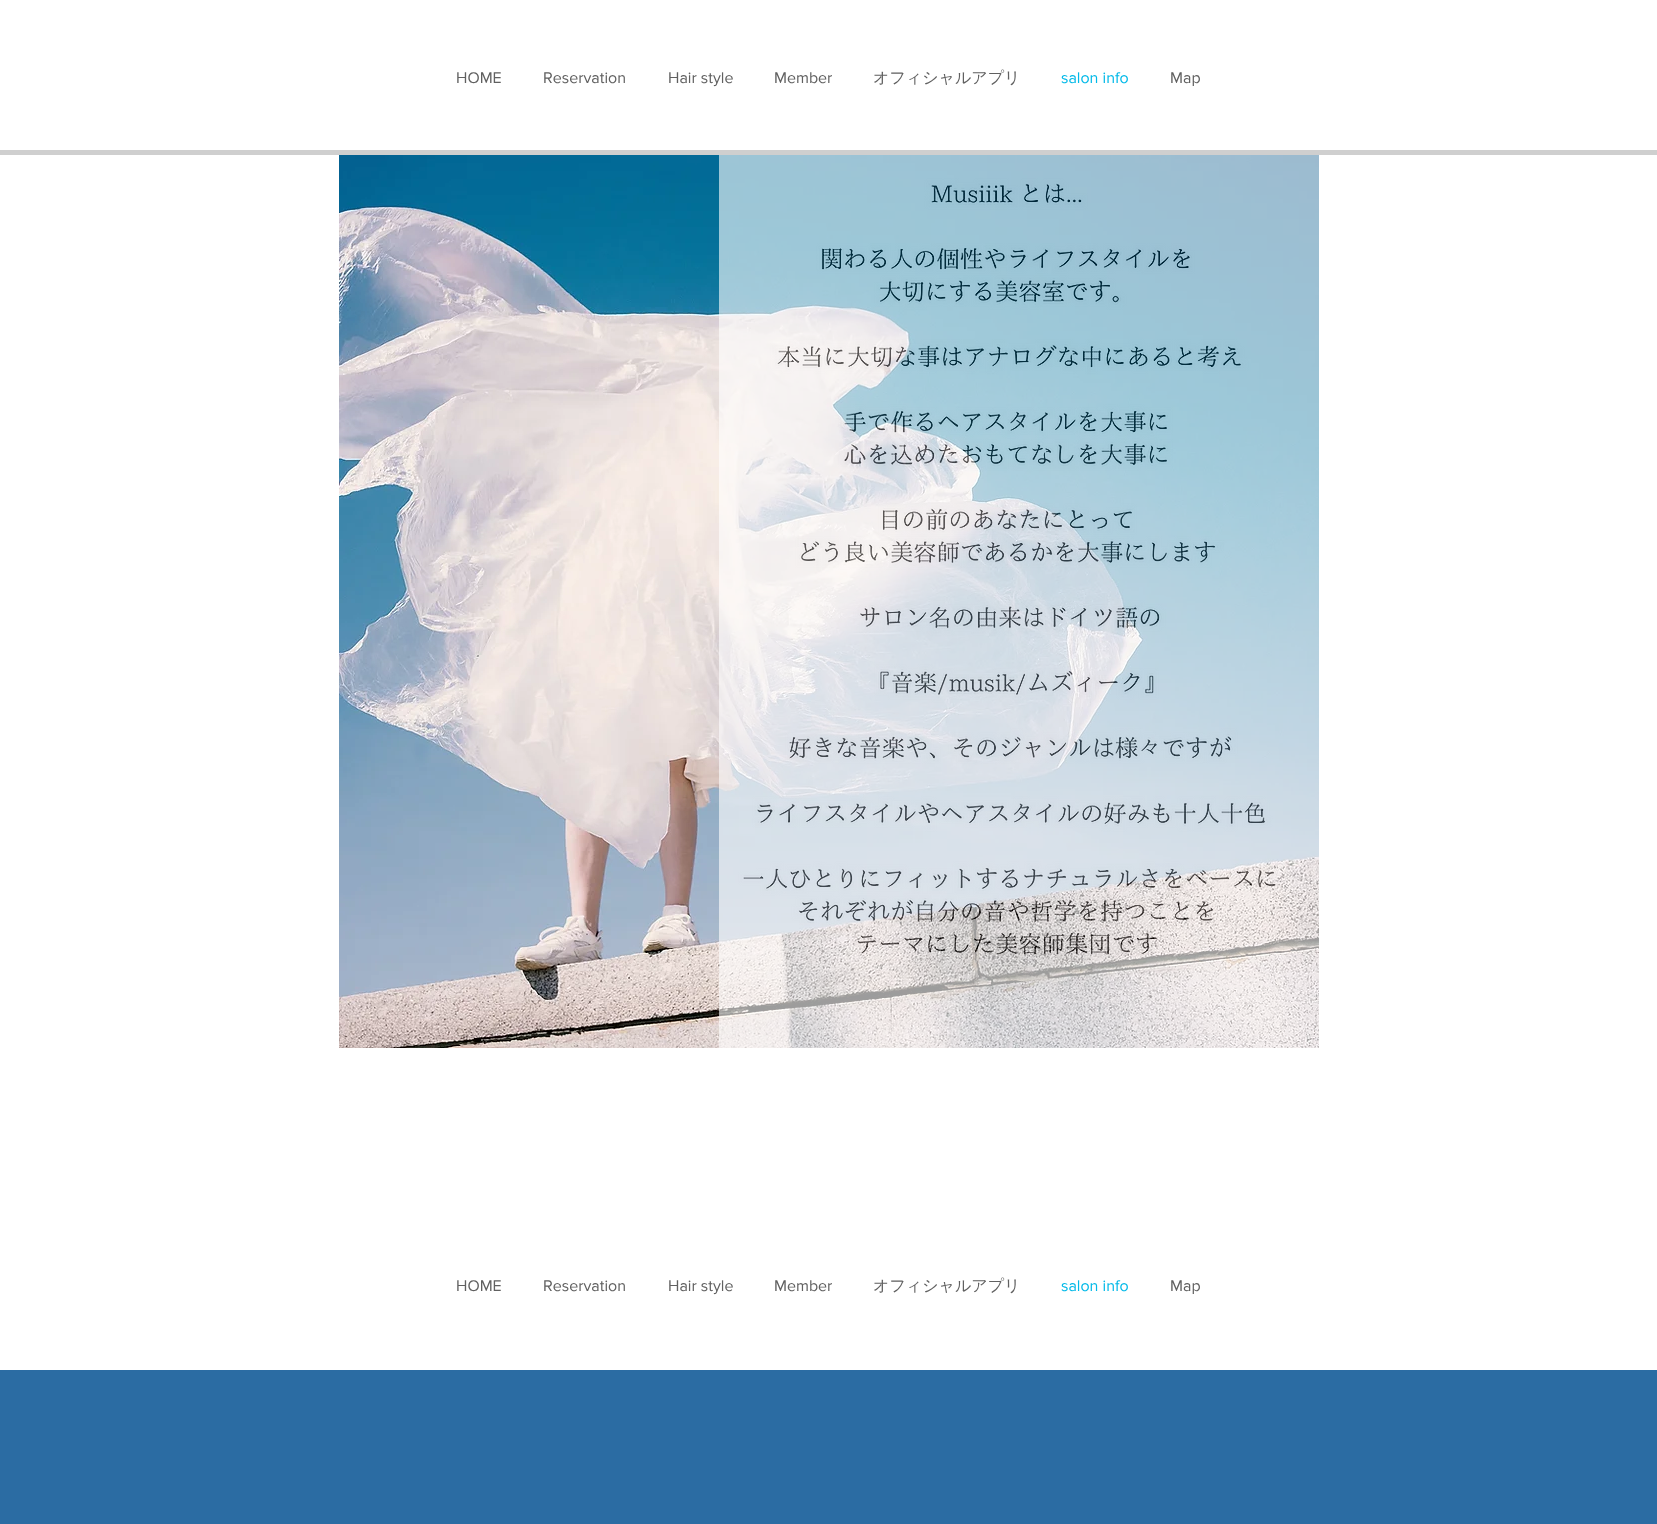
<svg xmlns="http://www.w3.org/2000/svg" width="1657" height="1524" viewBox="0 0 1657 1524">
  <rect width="100%" height="100%" fill="#ffffff"/>
  <text x="456" y="83" font-family="'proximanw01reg'" font-size="16" fill="#606060">HOME</text>
  <text x="543" y="83" font-family="'proximanw01reg'" font-size="16" fill="#606060">Reservation</text>
  <text x="668" y="83" font-family="'proximanw01reg'" font-size="16" fill="#606060">Hair style</text>
  <text x="774" y="83" font-family="'proximanw01reg'" font-size="16" fill="#606060">Member</text>
  <text x="873" y="83" font-family="WenQuanYi Zen Hei" font-size="16" font-weight="500" fill="#606060">オフィシャルアプリ</text>
  <text x="1061" y="83" font-family="'proximanw01reg'" font-size="16" fill="#00b9e8">salon info</text>
  <text x="1170" y="83" font-family="'proximanw01reg'" font-size="16" fill="#606060">Map</text>
  <rect x="0" y="150" width="1657" height="5" fill="#cfcfcf"/>
  <image x="339" y="155" width="980" height="893" href="img1.png"/>
  <image x="719" y="155" width="600" height="893" href="img2.png"/>
  <text x="456" y="1291" font-family="'proximanw01reg'" font-size="16" fill="#606060">HOME</text>
  <text x="543" y="1291" font-family="'proximanw01reg'" font-size="16" fill="#606060">Reservation</text>
  <text x="668" y="1291" font-family="'proximanw01reg'" font-size="16" fill="#606060">Hair style</text>
  <text x="774" y="1291" font-family="'proximanw01reg'" font-size="16" fill="#606060">Member</text>
  <text x="873" y="1291" font-family="WenQuanYi Zen Hei" font-size="16" font-weight="500" fill="#606060">オフィシャルアプリ</text>
  <text x="1061" y="1291" font-family="'proximanw01reg'" font-size="16" fill="#00b9e8">salon info</text>
  <text x="1170" y="1291" font-family="'proximanw01reg'" font-size="16" fill="#606060">Map</text>
  <rect x="0" y="1370" width="1657" height="154" fill="#2b6ca3"/>
</svg>
